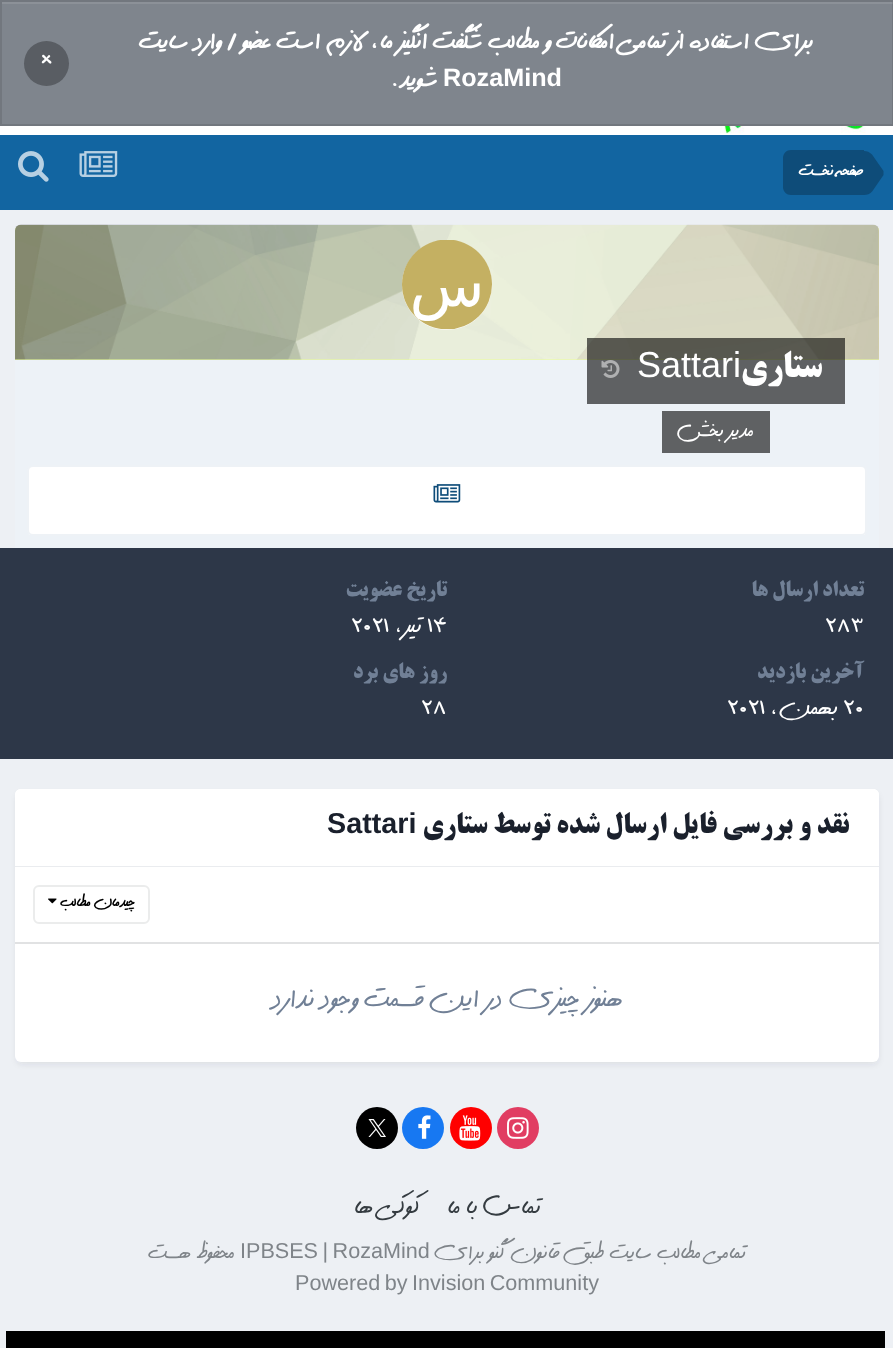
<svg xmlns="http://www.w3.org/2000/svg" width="893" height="1348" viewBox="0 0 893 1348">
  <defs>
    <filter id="blur1" x="-50%" y="-200%" width="200%" height="500%"><feGaussianBlur stdDeviation="3"/></filter>
  </defs>
  <rect width="100%" height="100%" fill="#edf0f4"/>
  <rect x="0" y="0" width="893" height="126" fill="#7f858d"/>
  <rect x="2" y="2" width="891" height="2" fill="#8c9198"/>
  <rect x="1" y="1" width="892" height="124" fill="none" stroke="#000000" stroke-opacity="0.1" stroke-width="2"/>
  <text x="813" y="48" font-family="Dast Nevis" font-size="25.2" font-weight="bold" direction="rtl" fill="#ffffff">برای استفاده از تمامی امکانات و مطالب شگفت انگیز ما، لازم است عضو / وارد سایت</text>
  <text x="443" y="86" font-family="Liberation Sans" font-size="25.2" font-weight="bold" fill="#ffffff">RozaMind</text>
  <text x="438" y="86" font-family="Dast Nevis" font-size="25.2" font-weight="bold" direction="rtl" fill="#ffffff">شوید.</text>
  <circle cx="46.5" cy="63.5" r="22.5" fill="#595d63"/>
  <text x="40" y="66" font-family="Dast Nevis" font-size="27" font-weight="bold" fill="#ffffff">×</text>
  <rect x="0" y="126" width="893" height="9" fill="#ffffff"/>
  <image x="720" y="126" width="152" height="8" href="img1.png"/>
  <rect x="0" y="135" width="893" height="75" fill="#1265a1"/>
  <path d="M791 150H864V195H791C786.5 195 783 191.5 783 187V158C783 153.5 786.5 150 791 150Z" fill="#0e4c79"/>
  <path d="M883.5 173H864V151C867 151 869.5 152 872 154.5L883.5 171ZM872.5 191C870 194 867 195 864 195V173H883.5V175Z" fill="#0e4c79"/>
  <text x="864" y="175" font-family="Dast Nevis" font-size="16.5" font-weight="bold" direction="rtl" fill="#ffffff">صفحه نخست</text>
  <image x="79" y="151" width="39" height="26" href="img2.png"/>
  <image x="18" y="151" width="31" height="31" href="img3.png"/>
  <path d="M21 225H873C876.5 225 879 227.5 879 231V360H15V231C15 227.5 17.5 225 21 225Z" fill="#ebff99"/>
  <image x="15" y="224" width="864" height="136" href="img4.png"/>
  <circle cx="447" cy="285" r="45" fill="#ffffff"/>
  <image x="402" y="240" width="90" height="90" href="img5.png"/>
  <rect x="15" y="360" width="864" height="188" fill="#edf2f7"/>
  <rect x="587" y="338" width="258" height="66" fill="#000000" fill-opacity="0.6"/>
  <text x="822" y="377" font-family="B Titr" font-size="36" font-weight="bold" direction="rtl" fill="#ffffff">ستاری</text>
  <text x="637" y="377" font-family="Liberation Sans" font-size="36" fill="#ffffff">Sattari</text>
  <image x="601" y="360" width="19" height="18" href="img6.png"/>
  <rect x="662" y="411" width="108" height="42" fill="#5f6163"/>
  <text x="754" y="436" font-family="Dast Nevis" font-size="21" direction="rtl" fill="#ffffff">مدیر بخش</text>
  <rect x="27" y="465" width="840" height="71" rx="6" fill="#ffffff"/>
  <rect x="28" y="466" width="838" height="69" rx="5" fill="none" stroke="#0e4c79" stroke-opacity="0.07" stroke-width="2"/>
  <image x="433" y="484" width="28" height="19" href="img7.png"/>
  <rect x="0" y="548" width="893" height="211" fill="#2d3748"/>
  <text x="864" y="596" font-family="B Titr" font-size="21.6" font-weight="bold" direction="rtl" fill="#718096">تعداد ارسال ها</text>
  <text x="825" y="632" font-family="Dast Nevis" font-size="25.2" fill="#ffffff">283</text>
  <text x="447" y="596" font-family="B Titr" font-size="21.6" font-weight="bold" direction="rtl" fill="#718096">تاریخ عضویت</text>
  <text x="427" y="632" font-family="Dast Nevis" font-size="25.2" fill="#ffffff">14</text>
  <text x="422" y="632" font-family="Dast Nevis" font-size="25.2" direction="rtl" fill="#ffffff">تیر،</text>
  <text x="351" y="632" font-family="Dast Nevis" font-size="25.2" fill="#ffffff">2021</text>
  <text x="864" y="678" font-family="B Titr" font-size="21.6" font-weight="bold" direction="rtl" fill="#718096">آخرین بازدید</text>
  <text x="843" y="714" font-family="Dast Nevis" font-size="25.2" fill="#ffffff">20</text>
  <text x="838" y="714" font-family="Dast Nevis" font-size="25.2" direction="rtl" fill="#ffffff">بهمن،</text>
  <text x="727" y="714" font-family="Dast Nevis" font-size="25.2" fill="#ffffff">2021</text>
  <text x="447" y="678" font-family="B Titr" font-size="21.6" font-weight="bold" direction="rtl" fill="#718096">روز های برد</text>
  <text x="421" y="714" font-family="Dast Nevis" font-size="25.2" fill="#ffffff">28</text>
  <rect x="17" y="794" width="861" height="270" rx="5" fill="#2d3748" fill-opacity="0.1" filter="url(#blur1)"/>
  <rect x="15" y="789" width="864" height="273" rx="6" fill="#ffffff"/>
  <path d="M21 789H873C876.5 789 879 791.5 879 795V867H15V795C15 791.5 17.5 789 21 789Z" fill="#ffffff"/>
  <rect x="15" y="866" width="864" height="1" fill="#eaecef"/>
  <text x="849" y="833" font-family="B Titr" font-size="28.75" font-weight="bold" direction="rtl" fill="#1a202c">نقد و بررسی فایل ارسال شده توسط ستاری</text>
  <text x="327" y="833" font-family="Liberation Sans" font-size="28.75" font-weight="bold" fill="#1a202c">Sattari</text>
  <rect x="15" y="942" width="864" height="2" fill="#e1e2e3"/>
  <image x="48" y="898" width="9" height="6" href="img8.png"/>
  <rect x="34" y="886" width="115" height="37" rx="5" fill="none" stroke="#ebecec" stroke-width="2"/>
  <text x="135" y="906" font-family="Dast Nevis" font-size="15" font-weight="bold" direction="rtl" fill="#000000">چیدمان مطالب</text>
  <text x="623" y="1006" font-family="Dast Nevis" font-size="28.75" direction="rtl" fill="#718096">هنوز چیزی در این قسمت وجود ندارد</text>
  <circle cx="518" cy="1128" r="21" fill="#e13d62"/>
  <image x="507" y="1117" width="22" height="22" href="img9.png"/>
  <circle cx="471" cy="1128" r="21" fill="#ff0000"/>
  <image x="459" y="1115" width="22" height="26" href="img10.png"/>
  <circle cx="423" cy="1128" r="21" fill="#1778f2"/>
  <image x="418" y="1115" width="13" height="24" href="img11.png"/>
  <circle cx="377" cy="1128" r="21" fill="#000000"/>
  <image x="368" y="1119" width="18" height="18" href="img12.png"/>
  <text x="541" y="1213" font-family="Dast Nevis" font-size="25.2" direction="rtl" fill="#353c41">تماس با ما</text>
  <text x="420" y="1213" font-family="Dast Nevis" font-size="25.2" direction="rtl" fill="#353c41">کوکی ها</text>
  <text x="746" y="1258" font-family="Dast Nevis" font-size="21.6" direction="rtl" fill="#7f8489">تمامی مطالب سایت طبق قانون گنو برای</text>
  <text x="240" y="1258" word-spacing="-1.5" font-family="Liberation Sans" font-size="21.6" fill="#7f8489">IPBSES | RozaMind</text>
  <text x="235" y="1258" font-family="Dast Nevis" font-size="21.6" direction="rtl" fill="#7f8489">محفوظ هست</text>
  <text x="295" y="1290" word-spacing="-1.5" font-family="Liberation Sans" font-size="21.6" fill="#7f8489">Powered by Invision Community</text>
  <rect x="6" y="1331" width="879" height="17" fill="#000000"/>
</svg>
